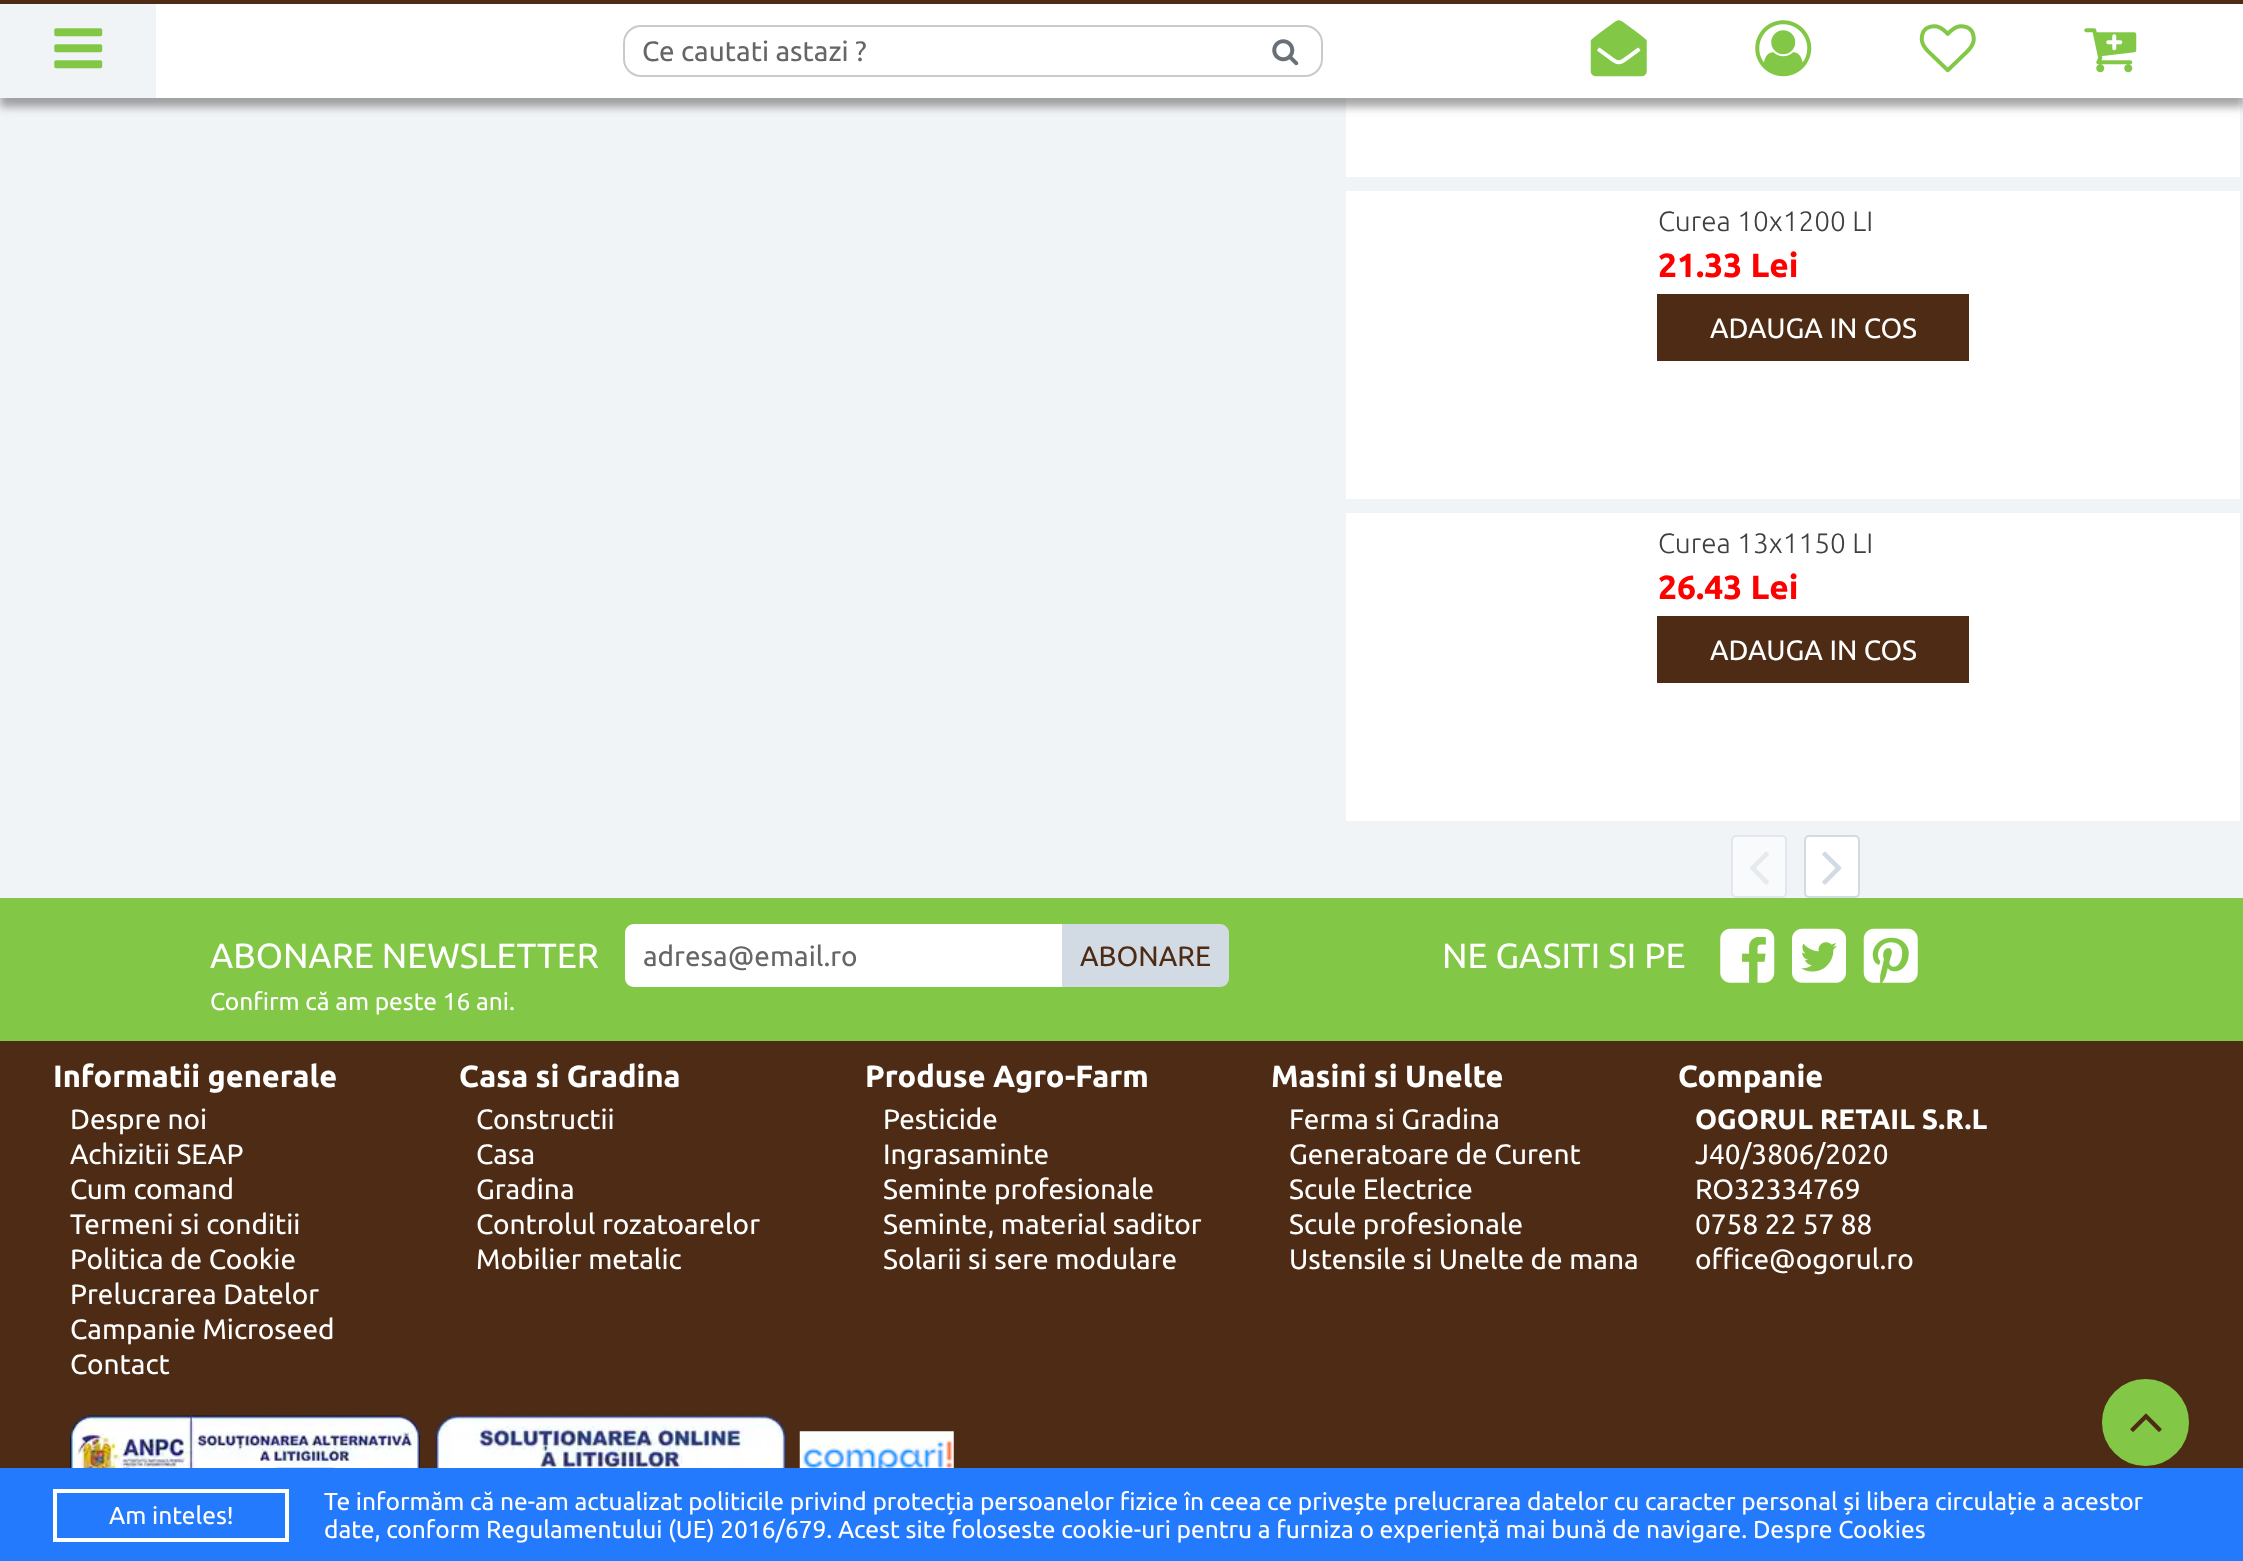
<svg xmlns="http://www.w3.org/2000/svg" width="2243" height="1561" viewBox="0 0 2243 1561">
  <defs>
    <filter id="blur1" x="-50%" y="-200%" width="200%" height="500%"><feGaussianBlur stdDeviation="4.5"/></filter>
  </defs>
  <rect width="100%" height="100%" fill="#f1f4f7"/>
  <rect x="1346" y="98" width="894" height="79" fill="#ffffff"/>
  <rect x="0" y="9" width="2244" height="98" fill="#000000" fill-opacity="0.35" filter="url(#blur1)"/>
  <rect x="156" y="4" width="2087" height="94" fill="#ffffff"/>
  <rect x="0" y="0" width="2243" height="4" fill="#4d2b14"/>
  <rect x="0" y="4" width="156" height="94" fill="#f1f4f7"/>
  <image x="54" y="28" width="49" height="41" href="img1.png"/>
  <image x="1590" y="20" width="57" height="57" href="img2.png"/>
  <image x="1755" y="20" width="57" height="57" href="img3.png"/>
  <image x="1919" y="24" width="57" height="49" href="img4.png"/>
  <image x="2084" y="28" width="53" height="45" href="img5.png"/>
  <rect x="624" y="26" width="698" height="50" rx="17" fill="none" stroke="#cacaca" stroke-width="2"/>
  <text x="642" y="61" font-family="Ubuntu" font-size="28" fill="#666666">Ce cautati astazi ?</text>
  <image x="1272" y="39" width="27" height="27" href="img6.png"/>
  <rect x="1346" y="191" width="894" height="308" fill="#ffffff"/>
  <text x="1658" y="231" font-family="Ubuntu" font-size="28" font-weight="300" fill="#403f3f">Curea 10x1200 LI</text>
  <text x="1658" y="277" font-family="Ubuntu" font-size="33.5" font-weight="bold" fill="#ff0000">21.33 Lei</text>
  <rect x="1657" y="294" width="312" height="67" fill="#4d2b14"/>
  <text x="1710" y="338" font-family="Ubuntu" font-size="28" fill="#ffffff">ADAUGA IN COS</text>
  <rect x="1346" y="513" width="894" height="308" fill="#ffffff"/>
  <text x="1658" y="553" font-family="Ubuntu" font-size="28" font-weight="300" fill="#403f3f">Curea 13x1150 LI</text>
  <text x="1658" y="599" font-family="Ubuntu" font-size="33.5" font-weight="bold" fill="#ff0000">26.43 Lei</text>
  <rect x="1657" y="616" width="312" height="67" fill="#4d2b14"/>
  <text x="1710" y="660" font-family="Ubuntu" font-size="28" fill="#ffffff">ADAUGA IN COS</text>
  <rect x="1732" y="836" width="54" height="61" rx="4" fill="#f8fafb" stroke="#e2e7ed" stroke-width="2"/>
  <image x="1750" y="851" width="19" height="34" href="img7.png"/>
  <rect x="1805" y="836" width="54" height="61" rx="4" fill="#ffffff" stroke="#d2dae3" stroke-width="2"/>
  <image x="1822" y="851" width="20" height="34" href="img8.png"/>
  <rect x="0" y="1041" width="2243" height="427" fill="#4d2b14"/>
  <rect x="0" y="898" width="2243" height="143" fill="#82c746"/>
  <text x="210" y="968" font-family="Ubuntu" font-size="35" fill="#ffffff">ABONARE NEWSLETTER</text>
  <path d="M634 924H1062V987H634C629 987 625 983 625 978V933C625 928 629 924 634 924Z" fill="#ffffff"/>
  <text x="643" y="966" font-family="Ubuntu" font-size="28" fill="#666666">adresa@email.ro</text>
  <path d="M1062 924H1220C1225 924 1229 928 1229 933V978C1229 983 1225 987 1220 987H1062Z" fill="#d2dae3"/>
  <text x="1080" y="966" font-family="Ubuntu" font-size="28" fill="#4d2b14">ABONARE</text>
  <text x="210" y="1010" font-family="Ubuntu" font-size="24.5" fill="#ffffff">Confirm că am peste 16 ani.</text>
  <text x="1442" y="968" font-family="Ubuntu" font-size="35" fill="#ffffff">NE GASITI SI PE</text>
  <image x="1720" y="928" width="55" height="55" href="img9.png"/>
  <image x="1792" y="928" width="54" height="55" href="img10.png"/>
  <image x="1863" y="928" width="55" height="55" href="img11.png"/>
  <text x="53" y="1087" font-family="Ubuntu" font-size="30.75" font-weight="bold" fill="#ffffff">Informatii generale</text>
  <text x="70" y="1129" font-family="Ubuntu" font-size="28" fill="#ffffff">Despre noi</text>
  <text x="70" y="1164" font-family="Ubuntu" font-size="28" fill="#ffffff">Achizitii SEAP</text>
  <text x="70" y="1199" font-family="Ubuntu" font-size="28" fill="#ffffff">Cum comand</text>
  <text x="70" y="1234" font-family="Ubuntu" font-size="28" fill="#ffffff">Termeni si conditii</text>
  <text x="70" y="1269" font-family="Ubuntu" font-size="28" fill="#ffffff">Politica de Cookie</text>
  <text x="70" y="1304" font-family="Ubuntu" font-size="28" fill="#ffffff">Prelucrarea Datelor</text>
  <text x="70" y="1339" font-family="Ubuntu" font-size="28" fill="#ffffff">Campanie Microseed</text>
  <text x="70" y="1374" font-family="Ubuntu" font-size="28" fill="#ffffff">Contact</text>
  <text x="459" y="1087" font-family="Ubuntu" font-size="30.75" font-weight="bold" fill="#ffffff">Casa si Gradina</text>
  <text x="476" y="1129" font-family="Ubuntu" font-size="28" fill="#ffffff">Constructii</text>
  <text x="476" y="1164" font-family="Ubuntu" font-size="28" fill="#ffffff">Casa</text>
  <text x="476" y="1199" font-family="Ubuntu" font-size="28" fill="#ffffff">Gradina</text>
  <text x="476" y="1234" font-family="Ubuntu" font-size="28" fill="#ffffff">Controlul rozatoarelor</text>
  <text x="476" y="1269" font-family="Ubuntu" font-size="28" fill="#ffffff">Mobilier metalic</text>
  <text x="865" y="1087" font-family="Ubuntu" font-size="30.75" font-weight="bold" fill="#ffffff">Produse Agro-Farm</text>
  <text x="883" y="1129" font-family="Ubuntu" font-size="28" fill="#ffffff">Pesticide</text>
  <text x="883" y="1164" font-family="Ubuntu" font-size="28" fill="#ffffff">Ingrasaminte</text>
  <text x="883" y="1199" font-family="Ubuntu" font-size="28" fill="#ffffff">Seminte profesionale</text>
  <text x="883" y="1234" font-family="Ubuntu" font-size="28" fill="#ffffff">Seminte, material saditor</text>
  <text x="883" y="1269" font-family="Ubuntu" font-size="28" fill="#ffffff">Solarii si sere modulare</text>
  <text x="1271" y="1087" font-family="Ubuntu" font-size="30.75" font-weight="bold" fill="#ffffff">Masini si Unelte</text>
  <text x="1289" y="1129" font-family="Ubuntu" font-size="28" fill="#ffffff">Ferma si Gradina</text>
  <text x="1289" y="1164" font-family="Ubuntu" font-size="28" fill="#ffffff">Generatoare de Curent</text>
  <text x="1289" y="1199" font-family="Ubuntu" font-size="28" fill="#ffffff">Scule Electrice</text>
  <text x="1289" y="1234" font-family="Ubuntu" font-size="28" fill="#ffffff">Scule profesionale</text>
  <text x="1289" y="1269" font-family="Ubuntu" font-size="28" fill="#ffffff">Ustensile si Unelte de mana</text>
  <text x="1678" y="1087" font-family="Ubuntu" font-size="30.75" font-weight="bold" fill="#ffffff">Companie</text>
  <text x="1695" y="1129" font-family="Ubuntu" font-size="28" font-weight="bold" fill="#ffffff">OGORUL RETAIL S.R.L</text>
  <text x="1695" y="1164" font-family="Ubuntu" font-size="28" fill="#ffffff">J40/3806/2020</text>
  <text x="1695" y="1199" font-family="Ubuntu" font-size="28" fill="#ffffff">RO32334769</text>
  <text x="1695" y="1234" font-family="Ubuntu" font-size="28" fill="#ffffff">0758 22 57 88</text>
  <text x="1695" y="1269" font-family="Ubuntu" font-size="28" fill="#ffffff">office@ogorul.ro</text>
  <image x="70" y="1415" width="350" height="53" href="img12.png"/>
  <image x="435" y="1415" width="351" height="53" href="img13.png"/>
  <image x="799" y="1431" width="155" height="37" href="img14.png"/>
  <circle cx="2145.5" cy="1422.5" r="44.5" fill="#82c746" stroke="#4d2b14" stroke-width="2"/>
  <image x="2130" y="1413" width="32" height="19" href="img15.png"/>
  <rect x="0" y="1468" width="2243" height="93" fill="#237afc"/>
  <rect x="55" y="1491" width="232" height="49" fill="none" stroke="#ffffff" stroke-width="4"/>
  <text x="109" y="1524" font-family="Ubuntu" font-size="24.5" fill="#ffffff">Am inteles!</text>
  <text x="324" y="1510" font-family="Ubuntu" font-size="24.5" fill="#ffffff">Te informăm că ne-am actualizat politicile privind protecția persoanelor fizice în ceea ce privește prelucrarea datelor cu caracter personal și libera circulație a acestor</text>
  <text x="324" y="1538" font-family="Ubuntu" font-size="24.5" fill="#ffffff">date, conform Regulamentului (UE) 2016/679. Acest site foloseste cookie-uri pentru a furniza o experiență mai bună de navigare. Despre Cookies</text>
</svg>
